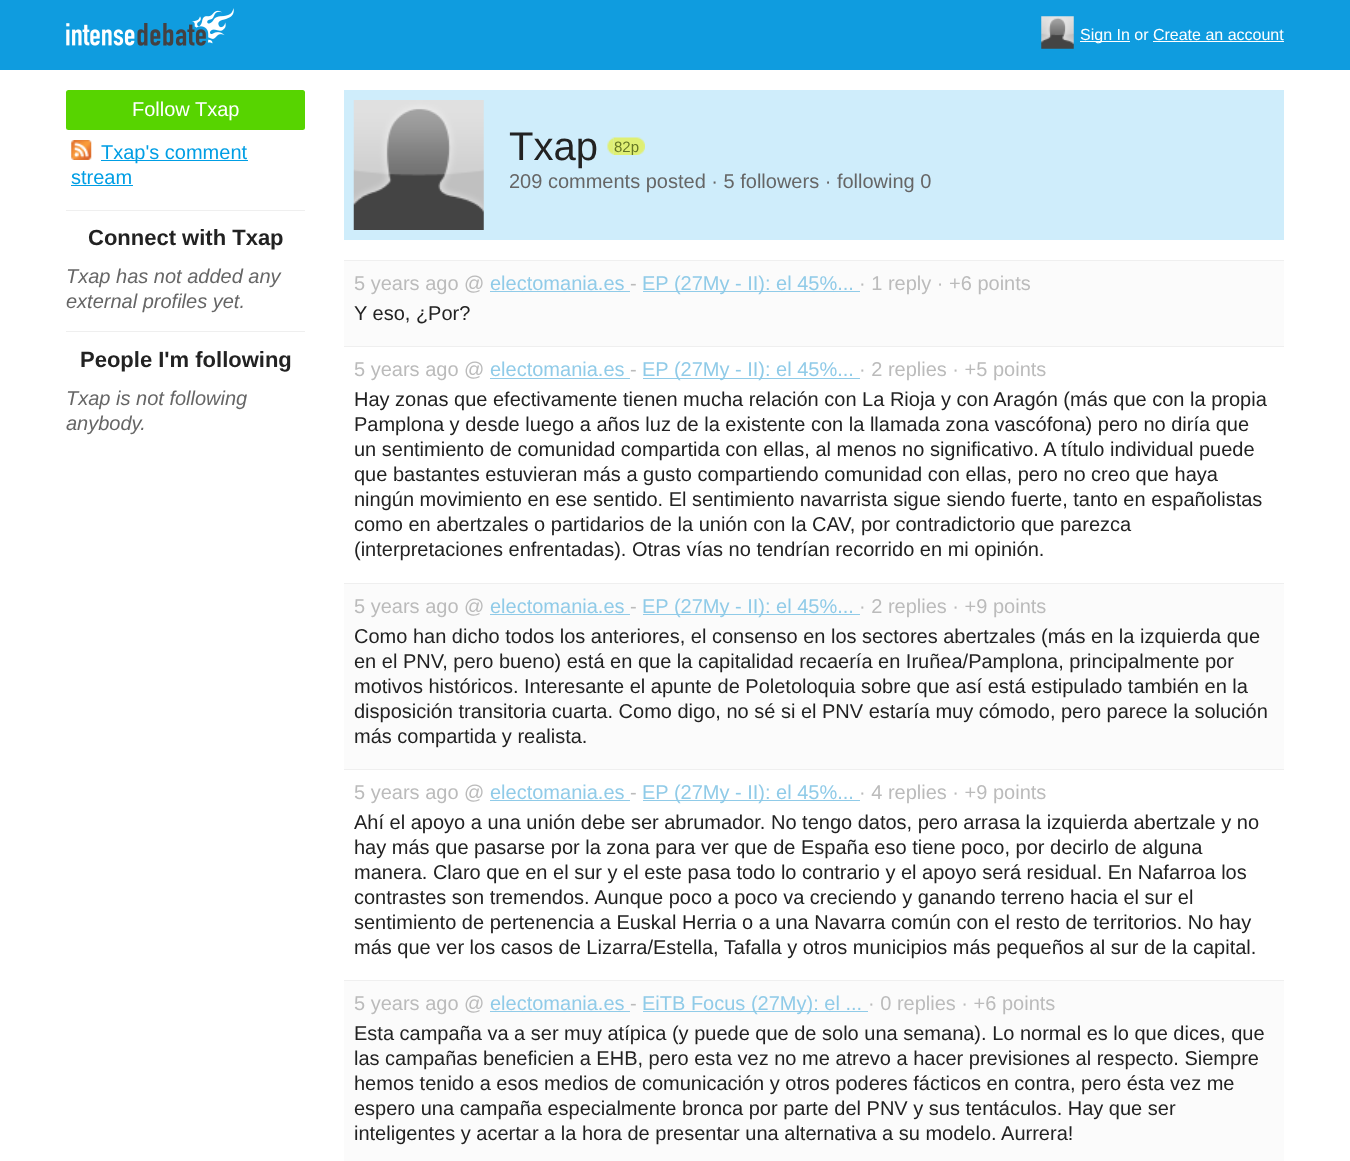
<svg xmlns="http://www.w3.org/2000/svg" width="1350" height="1161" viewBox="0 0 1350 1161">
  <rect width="100%" height="100%" fill="#ffffff"/>
  <rect x="0" y="0" width="1350" height="70" fill="#0f9cdf"/>
  <image x="66" y="8" width="168" height="38" href="img1.png"/>
  <image x="1041" y="16" width="33" height="33" href="img2.png"/>
  <rect x="1080" y="41" width="50" height="1" fill="#ffffff"/>
  <text x="1080" y="40" font-family="Liberation Sans" font-size="16" fill="#ffffff">Sign In or Create an account</text>
  <rect x="1153" y="41" width="131" height="1" fill="#ffffff"/>
  <rect x="66" y="90" width="239" height="40" rx="2.5" fill="#57d400"/>
  <text x="132" y="116" font-family="Liberation Sans" font-size="20" fill="#ffffff">Follow Txap</text>
  <image x="71" y="140" width="21" height="20" href="img3.png"/>
  <rect x="101" y="160" width="147" height="1" fill="#009ee4"/>
  <text x="101" y="159" font-family="Liberation Sans" font-size="20" fill="#009ee4">Txap's comment</text>
  <text x="71" y="184" font-family="Liberation Sans" font-size="20" fill="#009ee4">stream</text>
  <rect x="71" y="185" width="62" height="1" fill="#009ee4"/>
  <rect x="66" y="210" width="239" height="1" fill="#efefef"/>
  <text x="88" y="245" font-family="Liberation Sans" font-size="22" font-weight="bold" fill="#222222">Connect with Txap</text>
  <text x="66" y="283" font-family="Liberation Sans" font-size="20" font-style="italic" fill="#666666">Txap has not added any</text>
  <text x="66" y="308" font-family="Liberation Sans" font-size="20" font-style="italic" fill="#666666">external profiles yet.</text>
  <rect x="66" y="331" width="239" height="1" fill="#efefef"/>
  <text x="80" y="367" font-family="Liberation Sans" font-size="22" font-weight="bold" fill="#222222">People I'm following</text>
  <text x="66" y="405" font-family="Liberation Sans" font-size="20" font-style="italic" fill="#666666">Txap is not following</text>
  <text x="66" y="430" font-family="Liberation Sans" font-size="20" font-style="italic" fill="#666666">anybody.</text>
  <rect x="344" y="90" width="940" height="150" fill="#cfedfb"/>
  <image x="353" y="100" width="131" height="130" href="img4.png"/>
  <text x="509" y="160" font-family="Liberation Sans" font-size="40" fill="#222222">Txap</text>
  <image x="607" y="137" width="7" height="18" href="img5.png"/>
  <image x="613" y="137" width="32" height="18" href="img6.png"/>
  <text x="614" y="152" font-family="Liberation Sans" font-size="15" fill="#667726">82p</text>
  <text x="509" y="188" font-family="Liberation Sans" font-size="20" fill="#666666">209 comments posted · 5 followers · following 0</text>
  <rect x="344" y="261" width="940" height="85" fill="#fbfbfb"/>
  <rect x="344" y="260" width="940" height="1" fill="#efefef"/>
  <text x="354" y="290" font-family="Liberation Sans" font-size="20" fill="#bbbbbb">5 years ago @</text>
  <text x="490" y="290" font-family="Liberation Sans" font-size="20" fill="#90cbe8">electomania.es</text>
  <rect x="490" y="291" width="140" height="1" fill="#90cbe8"/>
  <text x="630" y="290" font-family="Liberation Sans" font-size="20" fill="#bbbbbb">-</text>
  <rect x="643" y="291" width="217" height="1" fill="#90cbe8"/>
  <text x="642" y="290" font-family="Liberation Sans" font-size="20" fill="#90cbe8">EP (27My - II): el 45%...</text>
  <text x="859" y="290" font-family="Liberation Sans" font-size="20" fill="#bbbbbb">· 1 reply · +6 points</text>
  <text x="354" y="320" font-family="Liberation Sans" font-size="20" fill="#222222">Y eso, ¿Por?</text>
  <rect x="344" y="346" width="940" height="1" fill="#efefef"/>
  <text x="354" y="376" font-family="Liberation Sans" font-size="20" fill="#bbbbbb">5 years ago @</text>
  <text x="490" y="376" font-family="Liberation Sans" font-size="20" fill="#90cbe8">electomania.es</text>
  <rect x="490" y="378" width="140" height="1" fill="#90cbe8"/>
  <text x="630" y="376" font-family="Liberation Sans" font-size="20" fill="#bbbbbb">-</text>
  <rect x="643" y="378" width="217" height="1" fill="#90cbe8"/>
  <text x="642" y="376" font-family="Liberation Sans" font-size="20" fill="#90cbe8">EP (27My - II): el 45%...</text>
  <text x="859" y="376" font-family="Liberation Sans" font-size="20" fill="#bbbbbb">· 2 replies · +5 points</text>
  <text x="354" y="406" font-family="Liberation Sans" font-size="20" fill="#222222">Hay zonas que efectivamente tienen mucha relación con La Rioja y con Aragón (más que con la propia</text>
  <text x="354" y="431" font-family="Liberation Sans" font-size="20" fill="#222222">Pamplona y desde luego a años luz de la existente con la llamada zona vascófona) pero no diría que</text>
  <text x="354" y="456" font-family="Liberation Sans" font-size="20" fill="#222222">un sentimiento de comunidad compartida con ellas, al menos no significativo. A título individual puede</text>
  <text x="354" y="481" font-family="Liberation Sans" font-size="20" fill="#222222">que bastantes estuvieran más a gusto compartiendo comunidad con ellas, pero no creo que haya</text>
  <text x="354" y="506" font-family="Liberation Sans" font-size="20" fill="#222222">ningún movimiento en ese sentido. El sentimiento navarrista sigue siendo fuerte, tanto en españolistas</text>
  <text x="354" y="531" font-family="Liberation Sans" font-size="20" fill="#222222">como en abertzales o partidarios de la unión con la CAV, por contradictorio que parezca</text>
  <text x="354" y="556" font-family="Liberation Sans" font-size="20" fill="#222222">(interpretaciones enfrentadas). Otras vías no tendrían recorrido en mi opinión.</text>
  <rect x="344" y="584" width="940" height="185" fill="#fbfbfb"/>
  <rect x="344" y="583" width="940" height="1" fill="#efefef"/>
  <text x="354" y="613" font-family="Liberation Sans" font-size="20" fill="#bbbbbb">5 years ago @</text>
  <text x="490" y="613" font-family="Liberation Sans" font-size="20" fill="#90cbe8">electomania.es</text>
  <rect x="490" y="614" width="140" height="1" fill="#90cbe8"/>
  <text x="630" y="613" font-family="Liberation Sans" font-size="20" fill="#bbbbbb">-</text>
  <rect x="643" y="614" width="217" height="1" fill="#90cbe8"/>
  <text x="642" y="613" font-family="Liberation Sans" font-size="20" fill="#90cbe8">EP (27My - II): el 45%...</text>
  <text x="859" y="613" font-family="Liberation Sans" font-size="20" fill="#bbbbbb">· 2 replies · +9 points</text>
  <text x="354" y="643" font-family="Liberation Sans" font-size="20" fill="#222222">Como han dicho todos los anteriores, el consenso en los sectores abertzales (más en la izquierda que</text>
  <text x="354" y="668" font-family="Liberation Sans" font-size="20" fill="#222222">en el PNV, pero bueno) está en que la capitalidad recaería en Iruñea/Pamplona, principalmente por</text>
  <text x="354" y="693" font-family="Liberation Sans" font-size="20" fill="#222222">motivos históricos. Interesante el apunte de Poletoloquia sobre que así está estipulado también en la</text>
  <text x="354" y="718" font-family="Liberation Sans" font-size="20" fill="#222222">disposición transitoria cuarta. Como digo, no sé si el PNV estaría muy cómodo, pero parece la solución</text>
  <text x="354" y="743" font-family="Liberation Sans" font-size="20" fill="#222222">más compartida y realista.</text>
  <rect x="344" y="769" width="940" height="1" fill="#efefef"/>
  <text x="354" y="799" font-family="Liberation Sans" font-size="20" fill="#bbbbbb">5 years ago @</text>
  <text x="490" y="799" font-family="Liberation Sans" font-size="20" fill="#90cbe8">electomania.es</text>
  <rect x="490" y="800" width="140" height="1" fill="#90cbe8"/>
  <text x="630" y="799" font-family="Liberation Sans" font-size="20" fill="#bbbbbb">-</text>
  <rect x="643" y="800" width="217" height="1" fill="#90cbe8"/>
  <text x="642" y="799" font-family="Liberation Sans" font-size="20" fill="#90cbe8">EP (27My - II): el 45%...</text>
  <text x="859" y="799" font-family="Liberation Sans" font-size="20" fill="#bbbbbb">· 4 replies · +9 points</text>
  <text x="354" y="829" font-family="Liberation Sans" font-size="20" fill="#222222">Ahí el apoyo a una unión debe ser abrumador. No tengo datos, pero arrasa la izquierda abertzale y no</text>
  <text x="354" y="854" font-family="Liberation Sans" font-size="20" fill="#222222">hay más que pasarse por la zona para ver que de España eso tiene poco, por decirlo de alguna</text>
  <text x="354" y="879" font-family="Liberation Sans" font-size="20" fill="#222222">manera. Claro que en el sur y el este pasa todo lo contrario y el apoyo será residual. En Nafarroa los</text>
  <text x="354" y="904" font-family="Liberation Sans" font-size="20" fill="#222222">contrastes son tremendos. Aunque poco a poco va creciendo y ganando terreno hacia el sur el</text>
  <text x="354" y="929" font-family="Liberation Sans" font-size="20" fill="#222222">sentimiento de pertenencia a Euskal Herria o a una Navarra común con el resto de territorios. No hay</text>
  <text x="354" y="954" font-family="Liberation Sans" font-size="20" fill="#222222">más que ver los casos de Lizarra/Estella, Tafalla y otros municipios más pequeños al sur de la capital.</text>
  <rect x="344" y="981" width="940" height="180" fill="#fbfbfb"/>
  <rect x="344" y="980" width="940" height="1" fill="#efefef"/>
  <text x="354" y="1010" font-family="Liberation Sans" font-size="20" fill="#bbbbbb">5 years ago @</text>
  <text x="490" y="1010" font-family="Liberation Sans" font-size="20" fill="#90cbe8">electomania.es</text>
  <rect x="490" y="1011" width="140" height="1" fill="#90cbe8"/>
  <text x="630" y="1010" font-family="Liberation Sans" font-size="20" fill="#bbbbbb">-</text>
  <rect x="643" y="1011" width="225" height="1" fill="#90cbe8"/>
  <text x="642" y="1010" font-family="Liberation Sans" font-size="20" fill="#90cbe8">EiTB Focus (27My): el ...</text>
  <text x="868" y="1010" font-family="Liberation Sans" font-size="20" fill="#bbbbbb">· 0 replies · +6 points</text>
  <text x="354" y="1040" font-family="Liberation Sans" font-size="20" fill="#222222">Esta campaña va a ser muy atípica (y puede que de solo una semana). Lo normal es lo que dices, que</text>
  <text x="354" y="1065" font-family="Liberation Sans" font-size="20" fill="#222222">las campañas beneficien a EHB, pero esta vez no me atrevo a hacer previsiones al respecto. Siempre</text>
  <text x="354" y="1090" font-family="Liberation Sans" font-size="20" fill="#222222">hemos tenido a esos medios de comunicación y otros poderes fácticos en contra, pero ésta vez me</text>
  <text x="354" y="1115" font-family="Liberation Sans" font-size="20" fill="#222222">espero una campaña especialmente bronca por parte del PNV y sus tentáculos. Hay que ser</text>
  <text x="354" y="1140" font-family="Liberation Sans" font-size="20" fill="#222222">inteligentes y acertar a la hora de presentar una alternativa a su modelo. Aurrera!</text>
</svg>
